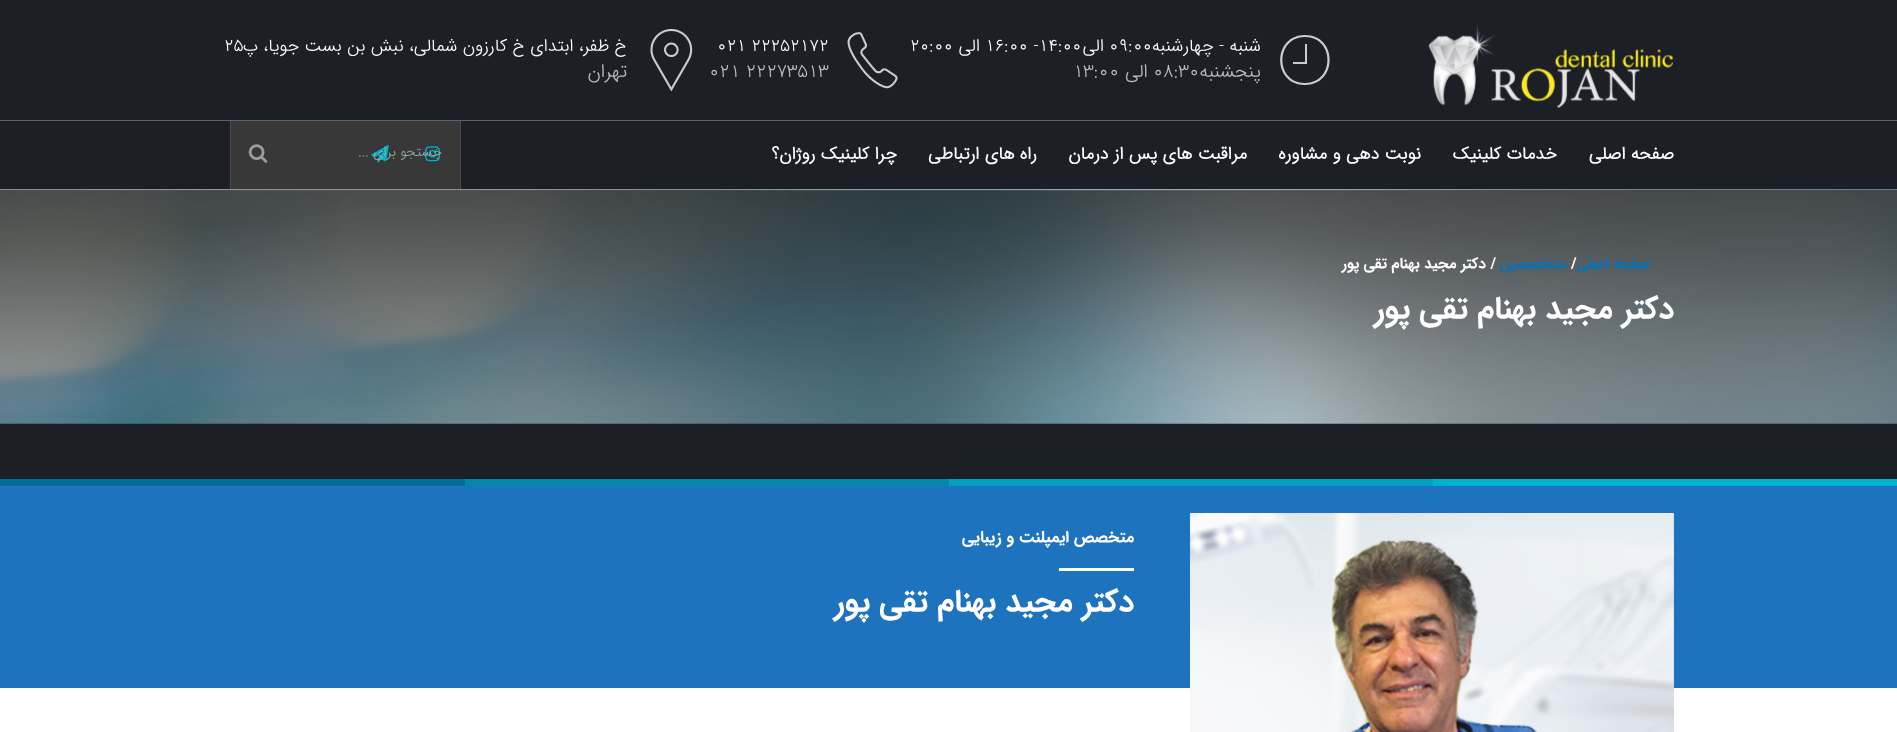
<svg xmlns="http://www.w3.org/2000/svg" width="1897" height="732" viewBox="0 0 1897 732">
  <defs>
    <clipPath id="clip1"><rect x="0" y="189" width="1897" height="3"/></clipPath>
    <filter id="blur1" x="-50%" y="-200%" width="200%" height="500%"><feGaussianBlur stdDeviation="2"/></filter>
  </defs>
  <rect width="100%" height="100%" fill="#1d1f27"/>
  <image x="0" y="189" width="1897" height="235" href="img7.png"/>
  <rect x="0" y="189" width="1897" height="1" fill="#cccccc" fill-opacity="0.34"/>
  <g clip-path="url(#clip1)">
    <rect x="0" y="1" width="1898" height="189" fill="#000000" fill-opacity="0.1" filter="url(#blur1)"/>
  </g>
  <image x="1428" y="25" width="245" height="83" href="img1.png"/>
  <path d="M1305 35C1272 35 1272 85 1305 85C1338 85 1338 35 1305 35ZM1305 83C1275 83 1275 37 1305 37C1335 37 1335 83 1305 83ZM1305 62H1293V64H1307V44H1305Z" fill="#cccccc"/>
  <text x="1261" y="51" font-family="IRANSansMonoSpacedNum" font-size="17.5" font-weight="300" direction="rtl" fill="#ffffff">شنبه - چهارشنبه</text>
  <text x="1109" y="51" font-family="IRANSansMonoSpacedNum" font-size="17.5" font-weight="300" fill="#ffffff">09:00</text>
  <text x="1104" y="51" font-family="IRANSansMonoSpacedNum" font-size="17.5" font-weight="300" direction="rtl" fill="#ffffff">الی</text>
  <text x="985" y="51" font-family="IRANSansMonoSpacedNum" font-size="17.5" font-weight="300" fill="#ffffff">16:00 -14:00</text>
  <text x="980" y="51" font-family="IRANSansMonoSpacedNum" font-size="17.5" font-weight="300" direction="rtl" fill="#ffffff">الی</text>
  <text x="910" y="51" font-family="IRANSansMonoSpacedNum" font-size="17.5" font-weight="300" fill="#ffffff">20:00</text>
  <text x="1261" y="77" font-family="IRANSansMonoSpacedNum" font-size="18.75" font-weight="300" direction="rtl" fill="#bbbcbe">پنجشنبه</text>
  <text x="1153" y="77" font-family="IRANSansMonoSpacedNum" font-size="18.75" font-weight="300" fill="#bbbcbe">08:30</text>
  <text x="1148" y="77" font-family="IRANSansMonoSpacedNum" font-size="18.75" font-weight="300" direction="rtl" fill="#bbbcbe">الی</text>
  <text x="1073" y="77" font-family="IRANSansMonoSpacedNum" font-size="18.75" font-weight="300" fill="#bbbcbe">13:00</text>
  <image x="847" y="32" width="51" height="57" href="img2.png"/>
  <text x="717" y="51" font-family="IRANSansMonoSpacedNum" font-size="17.5" font-weight="300" fill="#ffffff">021 22252172</text>
  <text x="709" y="77" font-family="IRANSansMonoSpacedNum" font-size="18.75" font-weight="300" fill="#bbbcbe">021 22273513</text>
  <image x="650" y="29" width="43" height="63" href="img3.png"/>
  <text x="627" y="51" font-family="IRANSansMonoSpacedNum" font-size="17.5" font-weight="300" direction="rtl" fill="#ffffff">خ ظفر، ابتدای خ کارزون شمالی، نبش بن بست جویا، پ</text>
  <text x="224" y="51" font-family="IRANSansMonoSpacedNum" font-size="17.5" font-weight="300" fill="#ffffff">۲۵</text>
  <text x="627" y="77" font-family="IRANSansMonoSpacedNum" font-size="18.75" font-weight="300" direction="rtl" fill="#bbbcbe">تهران</text>
  <rect x="0" y="120" width="1897" height="1" fill="#616268"/>
  <text x="1674" y="159" font-family="IRANSansMonoSpacedNum" font-size="17.5" font-weight="bold" direction="rtl" fill="#ffffff">صفحه اصلی</text>
  <text x="1557" y="159" font-family="IRANSansMonoSpacedNum" font-size="17.5" font-weight="bold" direction="rtl" fill="#ffffff">خدمات کلینیک</text>
  <text x="1421" y="159" font-family="IRANSansMonoSpacedNum" font-size="17.5" font-weight="bold" direction="rtl" fill="#ffffff">نوبت دهی و مشاوره</text>
  <text x="1247" y="159" font-family="IRANSansMonoSpacedNum" font-size="17.5" font-weight="bold" direction="rtl" fill="#ffffff">مراقبت های پس از درمان</text>
  <text x="1037" y="159" font-family="IRANSansMonoSpacedNum" font-size="17.5" font-weight="bold" direction="rtl" fill="#ffffff">راه های ارتباطی</text>
  <text x="897" y="159" font-family="IRANSansMonoSpacedNum" font-size="17.5" font-weight="bold" direction="rtl" fill="#ffffff">چرا کلینیک روژان؟</text>
  <rect x="231" y="121" width="229" height="68" fill="#383838"/>
  <image x="425" y="146" width="15" height="16" href="img4.png"/>
  <image x="371" y="145" width="18" height="18" href="img5.png"/>
  <rect x="460" y="121" width="1" height="68" fill="#4c4c4c"/>
  <rect x="230" y="121" width="1" height="68" fill="#4c4c4c"/>
  <text x="442" y="156" font-family="IRANSansMonoSpacedNum" font-size="13.75" font-weight="300" direction="rtl" fill="#95abae">جستجو برای ...</text>
  <image x="248" y="144" width="20" height="19" href="img6.png"/>
  <text x="1650" y="268" font-family="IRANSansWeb" font-size="15" font-weight="bold" direction="rtl" fill="#0074bc">صفحه اصلی</text>
  <text x="1571" y="268" font-family="IRANSansWeb" font-size="15" font-weight="bold" fill="#ffffff">/</text>
  <text x="1566" y="268" font-family="IRANSansWeb" font-size="15" font-weight="bold" direction="rtl" fill="#0074bc">متخصصین</text>
  <text x="1496" y="268" font-family="IRANSansWeb" font-size="15" font-weight="bold" direction="rtl" fill="#ffffff">/ دکتر مجید بهنام تقی پور</text>
  <text x="1674" y="318" font-family="IRANSansWeb" font-size="31.25" font-weight="bold" direction="rtl" fill="#ffffff">دکتر مجید بهنام تقی پور</text>
  <rect x="1433" y="479" width="464" height="7" fill="#00b3cc"/>
  <rect x="949" y="479" width="484" height="7" fill="#00a1be"/>
  <rect x="465" y="479" width="484" height="7" fill="#0087aa"/>
  <rect x="0" y="479" width="465" height="7" fill="#006d95"/>
  <rect x="0" y="486" width="1897" height="202" fill="#1e73be"/>
  <rect x="0" y="688" width="1897" height="44" fill="#ffffff"/>
  <image x="1190" y="513" width="484" height="219" href="img8.png"/>
  <text x="1134" y="542" font-family="IRANSansWeb" font-size="16.25" font-weight="bold" direction="rtl" fill="#ffffff">متخصص ایمپلنت و زیبایی</text>
  <rect x="1059" y="568" width="75" height="3" fill="#ffffff"/>
  <text x="1134" y="611" font-family="IRANSansWeb" font-size="31.25" font-weight="bold" direction="rtl" fill="#ffffff">دکتر مجید بهنام تقی پور</text>
</svg>
